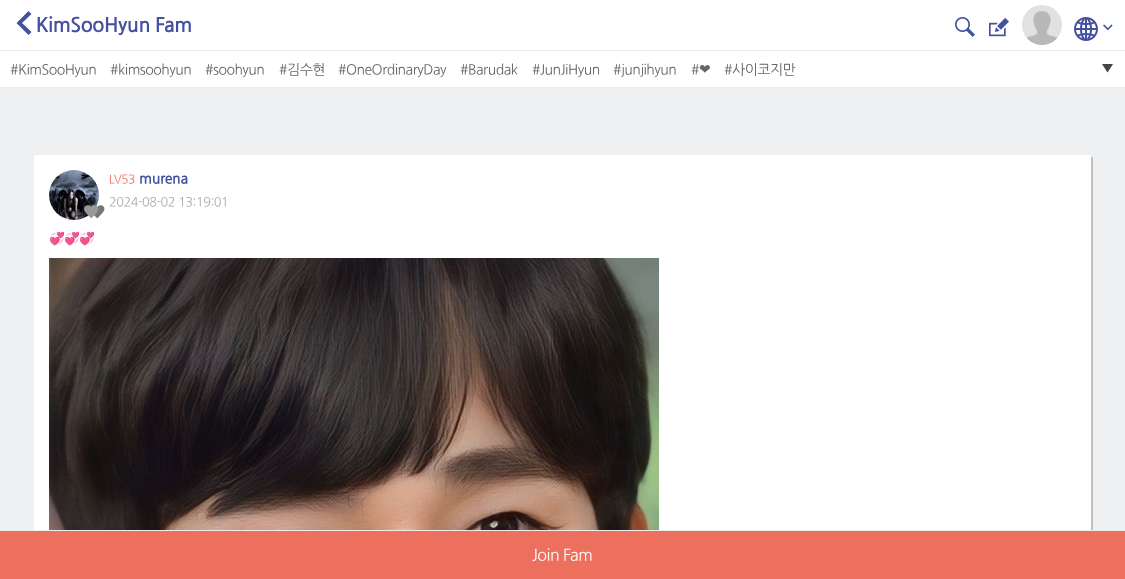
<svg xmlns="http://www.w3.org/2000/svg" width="1125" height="579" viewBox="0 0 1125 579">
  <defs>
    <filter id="blur1" x="-50%" y="-200%" width="200%" height="500%"><feGaussianBlur stdDeviation="0.5"/></filter>
  </defs>
  <rect width="100%" height="100%" fill="#eef0f2"/>
  <rect x="0" y="0" width="1125" height="50" fill="#ffffff"/>
  <rect x="0" y="50" width="1125" height="1" fill="#ebebeb"/>
  <path d="M28.5 11L31.5 14L22 23L31.5 32L28.5 35L16.5 23Z" fill="#44519e"/>
  <text x="36" y="31" font-family="NanumGothic" font-size="20" font-weight="bold" letter-spacing="-0.5" fill="#44519e">KimSooHyun Fam</text>
  <image x="955" y="17" width="20" height="20" href="img1.png"/>
  <image x="989" y="17" width="20" height="20" href="img2.png"/>
  <image x="1022" y="5" width="40" height="40" href="img3.png"/>
  <image x="1074" y="17" width="24" height="24" href="img4.png"/>
  <image x="1103" y="24" width="10" height="7" href="img5.png"/>
  <rect x="0" y="51" width="1125" height="36" fill="#ffffff"/>
  <rect x="0" y="87" width="1125" height="1" fill="#ebebeb"/>
  <text x="10" y="74" font-family="NanumGothic" font-size="14" letter-spacing="-0.5" fill="#666666">#KimSooHyun</text>
  <text x="110" y="74" font-family="NanumGothic" font-size="14" letter-spacing="-0.5" fill="#666666">#kimsoohyun</text>
  <text x="205" y="74" font-family="NanumGothic" font-size="14" letter-spacing="-0.5" fill="#666666">#soohyun</text>
  <text x="279" y="74" font-family="NanumGothic" font-size="14" letter-spacing="-0.5" fill="#666666">#김수현</text>
  <text x="338" y="74" font-family="NanumGothic" font-size="14" letter-spacing="-0.5" fill="#666666">#OneOrdinaryDay</text>
  <text x="460" y="74" font-family="NanumGothic" font-size="14" letter-spacing="-0.5" fill="#666666">#Barudak</text>
  <text x="532" y="74" font-family="NanumGothic" font-size="14" letter-spacing="-0.5" fill="#666666">#JunJiHyun</text>
  <text x="613" y="74" font-family="NanumGothic" font-size="14" letter-spacing="-0.5" fill="#666666">#junjihyun</text>
  <text x="691" y="74" font-family="NanumGothic" font-size="14" letter-spacing="-0.5" fill="#666666">#</text>
  <text x="699" y="74" font-family="DejaVu Sans" font-size="14" letter-spacing="-0.5" fill="#666666">❤</text>
  <text x="724" y="74" font-family="NanumGothic" font-size="14" letter-spacing="-0.5" fill="#666666">#사이코지만</text>
  <path d="M1107.5 72.5L1102 64H1113Z" fill="#444444"/>
  <rect x="36" y="157" width="1057" height="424" fill="#000000" fill-opacity="0.2" filter="url(#blur1)"/>
  <rect x="34" y="155" width="1057" height="375" fill="#ffffff"/>
  <image x="49" y="170" width="50" height="50" href="img6.png"/>
  <image x="90" y="205" width="15" height="14" href="img8.png"/>
  <image x="84" y="205" width="15" height="14" href="img7.png"/>
  <text x="109" y="183" font-family="NanumGothic" font-size="12" letter-spacing="-0.5" fill="#ed705f">LV53</text>
  <text x="139" y="183" font-family="NanumGothic" font-size="14.5" font-weight="bold" letter-spacing="-0.5" fill="#44519e">murena</text>
  <text x="109" y="206" font-family="NanumGothic" font-size="12.75" letter-spacing="-0.5" fill="#aaaaaa">2024-08-02 13:19:01</text>
  <text x="49" y="243" font-family="Noto Color Emoji" font-size="12.75" letter-spacing="-0.5" fill="#333333">💞💞💞</text>
  <image x="49" y="258" width="610" height="272" href="img9.png"/>
  <rect x="0" y="530" width="1125" height="1" fill="#ebebeb"/>
  <rect x="0" y="531" width="1125" height="48" fill="#ed705f"/>
  <text x="532" y="560" font-family="NanumGothic" font-size="16" letter-spacing="-0.5" fill="#ffffff">Join Fam</text>
</svg>
